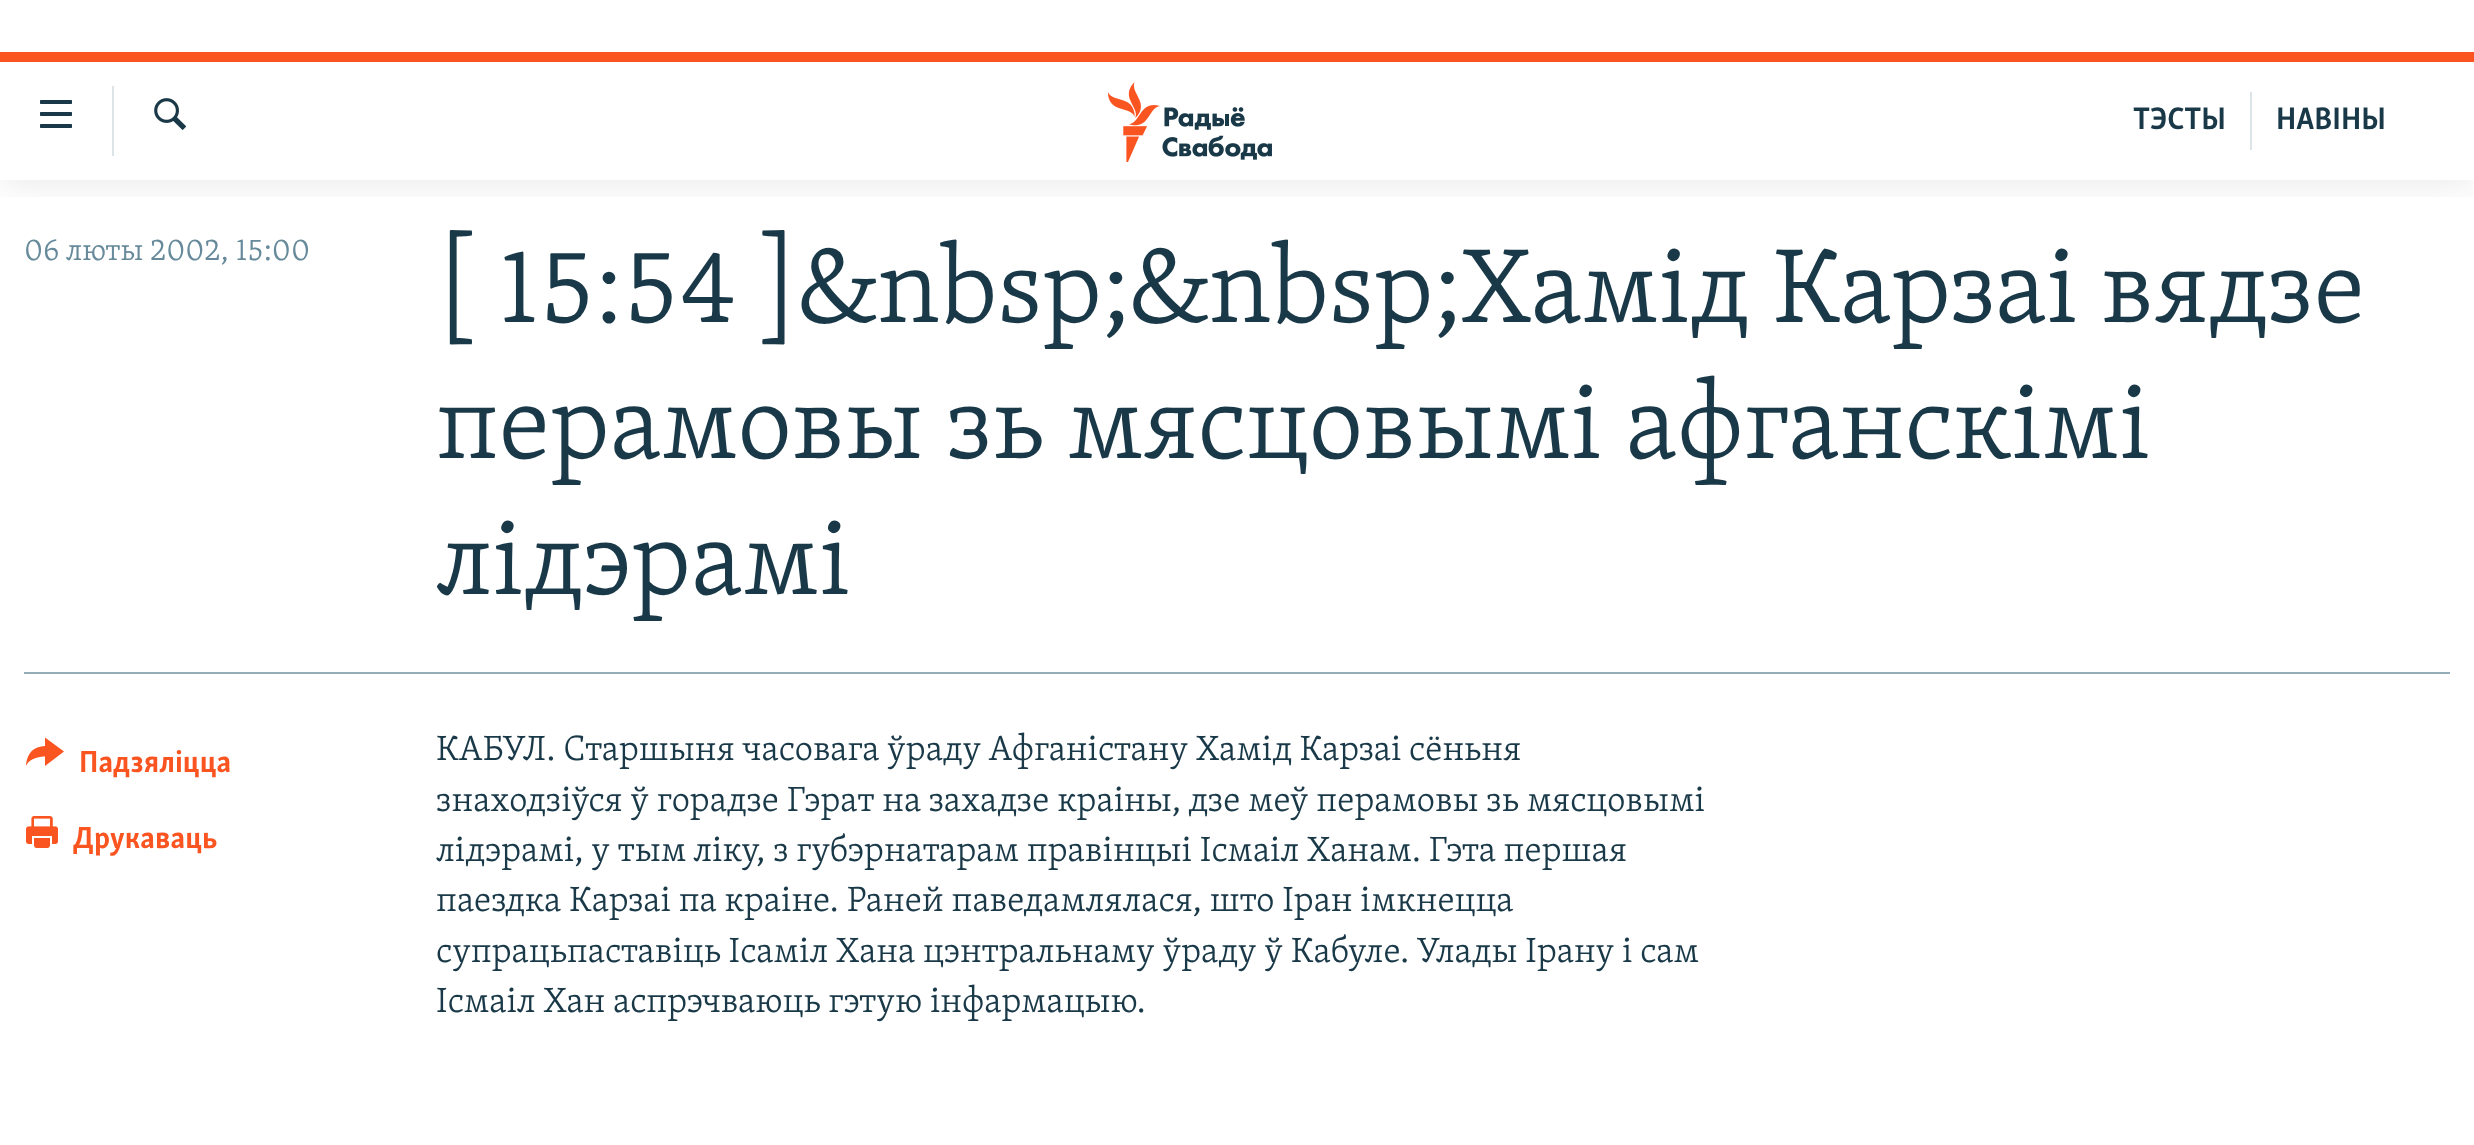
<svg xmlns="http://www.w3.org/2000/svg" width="2474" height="1145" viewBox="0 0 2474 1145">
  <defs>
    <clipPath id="clip1"><rect x="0" y="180" width="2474" height="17"/></clipPath>
    <filter id="blur1" x="-50%" y="-200%" width="200%" height="500%"><feGaussianBlur stdDeviation="20"/></filter>
  </defs>
  <rect width="100%" height="100%" fill="#ffffff"/>
  <g clip-path="url(#clip1)">
    <rect x="0" y="52" width="2474" height="128" fill="#000000" fill-opacity="0.1" filter="url(#blur1)"/>
  </g>
  <rect x="0" y="26" width="2474" height="26" fill="#ffffff"/>
  <rect x="0" y="52" width="2474" height="10" fill="#fa5420"/>
  <image x="40" y="100" width="32" height="28" href="img1.png"/>
  <rect x="112" y="86" width="2" height="70" fill="#dce4e8"/>
  <image x="154" y="98" width="32" height="32" href="img2.png"/>
  <image x="1108" y="82" width="164" height="80" href="img3.png"/>
  <rect x="2250" y="92" width="2" height="58" fill="#dce4e8"/>
  <text x="2133" y="129" font-family="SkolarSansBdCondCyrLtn" font-size="32" font-weight="bold" fill="#1a3948">ТЭСТЫ</text>
  <text x="2276" y="129" font-family="SkolarSansBdCondCyrLtn" font-size="32" font-weight="bold" fill="#1a3948">НАВІНЫ</text>
  <text x="24" y="260" font-family="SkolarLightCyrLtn" font-size="31.5" font-weight="300" fill="#678a9b">06 люты 2002, 15:00</text>
  <text x="436" y="322" font-family="SkolarLightCyrLtn" font-size="108" font-weight="300" fill="#1a3948">[ 15:54 ]&amp;nbsp;&amp;nbsp;Хамід Карзаі вядзе</text>
  <text x="436" y="458" font-family="SkolarLightCyrLtn" font-size="108" font-weight="300" fill="#1a3948">перамовы зь мясцовымі афганскімі</text>
  <text x="436" y="594" font-family="SkolarLightCyrLtn" font-size="108" font-weight="300" fill="#1a3948">лідэрамі</text>
  <rect x="24" y="672" width="2426" height="2" fill="#95adb9"/>
  <path d="M26 766C26.5 754 33 746.5 45 746V737.5L64 751.5L45 766V756.5C38 756.5 29 759 26 766Z" fill="#fa5420"/>
  <text x="79" y="772" font-family="SkolarSansBdCondCyrLtn" font-size="31.5" font-weight="bold" fill="#fa5420">Падзяліцца</text>
  <image x="26" y="816" width="32" height="32" href="img4.png"/>
  <text x="73" y="848" font-family="SkolarSansBdCondCyrLtn" font-size="31.5" font-weight="bold" fill="#fa5420">Друкаваць</text>
  <text x="436" y="760" font-family="SkolarLightCyrLtn" font-size="36" font-weight="300" fill="#1a3948">КАБУЛ. Старшыня часовага ўраду Афганістану Хамід Карзаі сёньня</text>
  <text x="436" y="811" font-family="SkolarLightCyrLtn" font-size="36" font-weight="300" fill="#1a3948">знаходзіўся ў горадзе Гэрат на захадзе краіны, дзе меў перамовы зь мясцовымі</text>
  <text x="436" y="861" font-family="SkolarLightCyrLtn" font-size="36" font-weight="300" fill="#1a3948">лідэрамі, у тым ліку, з губэрнатарам правінцыі Ісмаіл Ханам. Гэта першая</text>
  <text x="436" y="911" font-family="SkolarLightCyrLtn" font-size="36" font-weight="300" fill="#1a3948">паездка Карзаі па краіне. Раней паведамлялася, што Іран імкнецца</text>
  <text x="436" y="962" font-family="SkolarLightCyrLtn" font-size="36" font-weight="300" fill="#1a3948">супрацьпаставіць Ісаміл Хана цэнтральнаму ўраду ў Кабуле. Улады Ірану і сам</text>
  <text x="436" y="1012" font-family="SkolarLightCyrLtn" font-size="36" font-weight="300" fill="#1a3948">Ісмаіл Хан аспрэчваюць гэтую інфармацыю.</text>
</svg>
